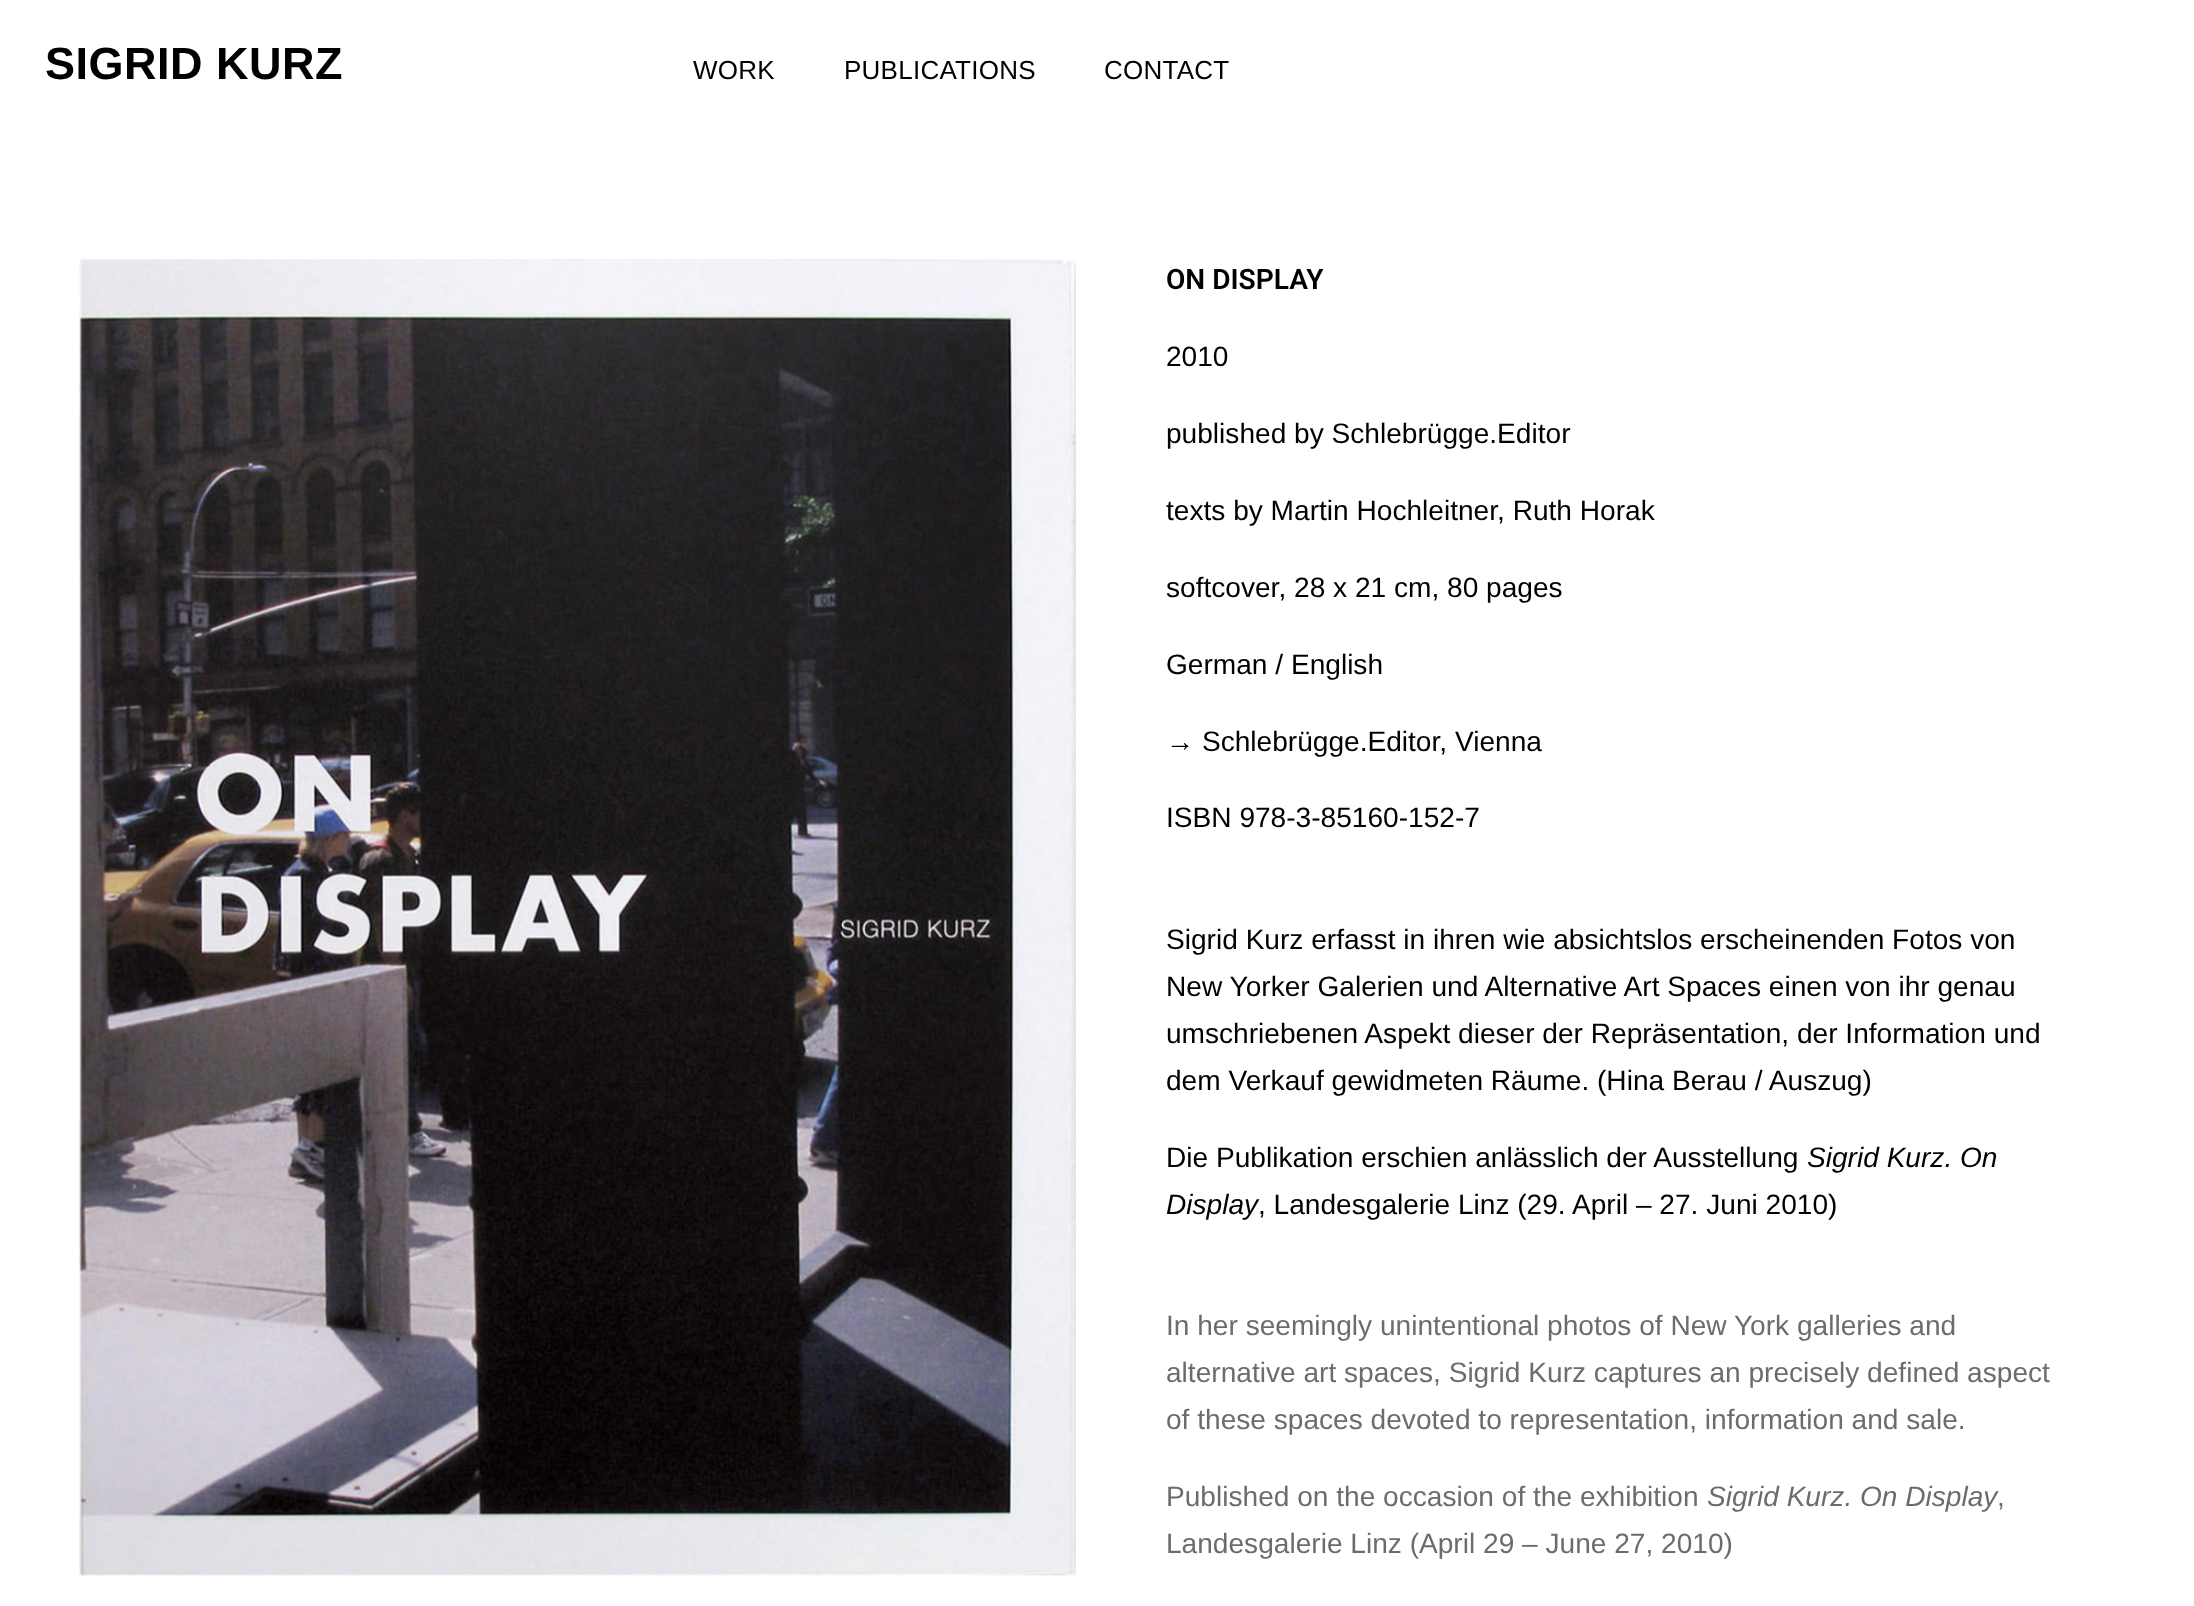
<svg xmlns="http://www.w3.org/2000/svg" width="2194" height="1606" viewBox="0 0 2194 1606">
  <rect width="100%" height="100%" fill="#ffffff"/>
  <text x="45" y="79" font-family="Liberation Sans" font-size="45" font-weight="bold" letter-spacing="0.5" fill="#000000">SIGRID KURZ</text>
  <text x="693" y="79" font-family="Liberation Sans" font-size="26" letter-spacing="0.25" fill="#000000">WORK</text>
  <text x="844" y="79" font-family="Liberation Sans" font-size="26" letter-spacing="0.25" fill="#000000">PUBLICATIONS</text>
  <text x="1104" y="79" font-family="Liberation Sans" font-size="26" letter-spacing="0.25" fill="#000000">CONTACT</text>
  <image x="79" y="259" width="997" height="1317" href="img1.png"/>
  <text x="1166" y="289" font-family="Roboto" font-size="28.1" font-weight="600" fill="#000000">ON DISPLAY</text>
  <text x="1166" y="366" font-family="Liberation Sans" font-size="28.1" fill="#000000">2010</text>
  <text x="1166" y="443" font-family="Liberation Sans" font-size="28.1" fill="#000000">published by Schlebrügge.Editor</text>
  <text x="1166" y="520" font-family="Liberation Sans" font-size="28.1" fill="#000000">texts by Martin Hochleitner, Ruth Horak</text>
  <text x="1166" y="597" font-family="Liberation Sans" font-size="28.1" fill="#000000">softcover, 28 x 21 cm, 80 pages</text>
  <text x="1166" y="674" font-family="Liberation Sans" font-size="28.1" fill="#000000">German / English</text>
  <text x="1166" y="751" font-family="Liberation Sans" font-size="28.1" fill="#000000">→ Schlebrügge.Editor, Vienna</text>
  <text x="1166" y="827" font-family="Liberation Sans" font-size="28.1" fill="#000000">ISBN 978-3-85160-152-7</text>
  <text x="1166" y="949" font-family="Liberation Sans" font-size="28.1" fill="#000000">Sigrid Kurz erfasst in ihren wie absichtslos erscheinenden Fotos von</text>
  <text x="1166" y="996" font-family="Liberation Sans" font-size="28.1" fill="#000000">New Yorker Galerien und Alternative Art Spaces einen von ihr genau</text>
  <text x="1166" y="1043" font-family="Liberation Sans" font-size="28.1" fill="#000000">umschriebenen Aspekt dieser der Repräsentation, der Information und</text>
  <text x="1166" y="1090" font-family="Liberation Sans" font-size="28.1" fill="#000000">dem Verkauf gewidmeten Räume. (Hina Berau / Auszug)</text>
  <text x="1166" y="1167" font-family="Liberation Sans" font-size="28.1" fill="#000000">Die Publikation erschien anlässlich der Ausstellung</text>
  <text x="1807" y="1167" font-family="Liberation Sans" font-size="28.1" font-style="italic" fill="#000000">Sigrid Kurz. On</text>
  <text x="1166" y="1214" font-family="Liberation Sans" font-size="28.1" font-style="italic" fill="#000000">Display</text>
  <text x="1258" y="1214" font-family="Liberation Sans" font-size="28.1" fill="#000000">, Landesgalerie Linz (29. April – 27. Juni 2010)</text>
  <text x="1166" y="1335" font-family="Liberation Sans" font-size="28.1" fill="#6c6c6c">In her seemingly unintentional photos of New York galleries and</text>
  <text x="1166" y="1382" font-family="Liberation Sans" font-size="28.1" fill="#6c6c6c">alternative art spaces, Sigrid Kurz captures an precisely defined aspect</text>
  <text x="1166" y="1429" font-family="Liberation Sans" font-size="28.1" fill="#6c6c6c">of these spaces devoted to representation, information and sale.</text>
  <text x="1166" y="1506" font-family="Liberation Sans" font-size="28.1" fill="#6c6c6c">Published on the occasion of the exhibition</text>
  <text x="1707" y="1506" font-family="Liberation Sans" font-size="28.1" font-style="italic" fill="#6c6c6c">Sigrid Kurz. On Display</text>
  <text x="1997" y="1506" font-family="Liberation Sans" font-size="28.1" fill="#6c6c6c">,</text>
  <text x="1166" y="1553" font-family="Liberation Sans" font-size="28.1" fill="#6c6c6c">Landesgalerie Linz (April 29 – June 27, 2010)</text>
</svg>
